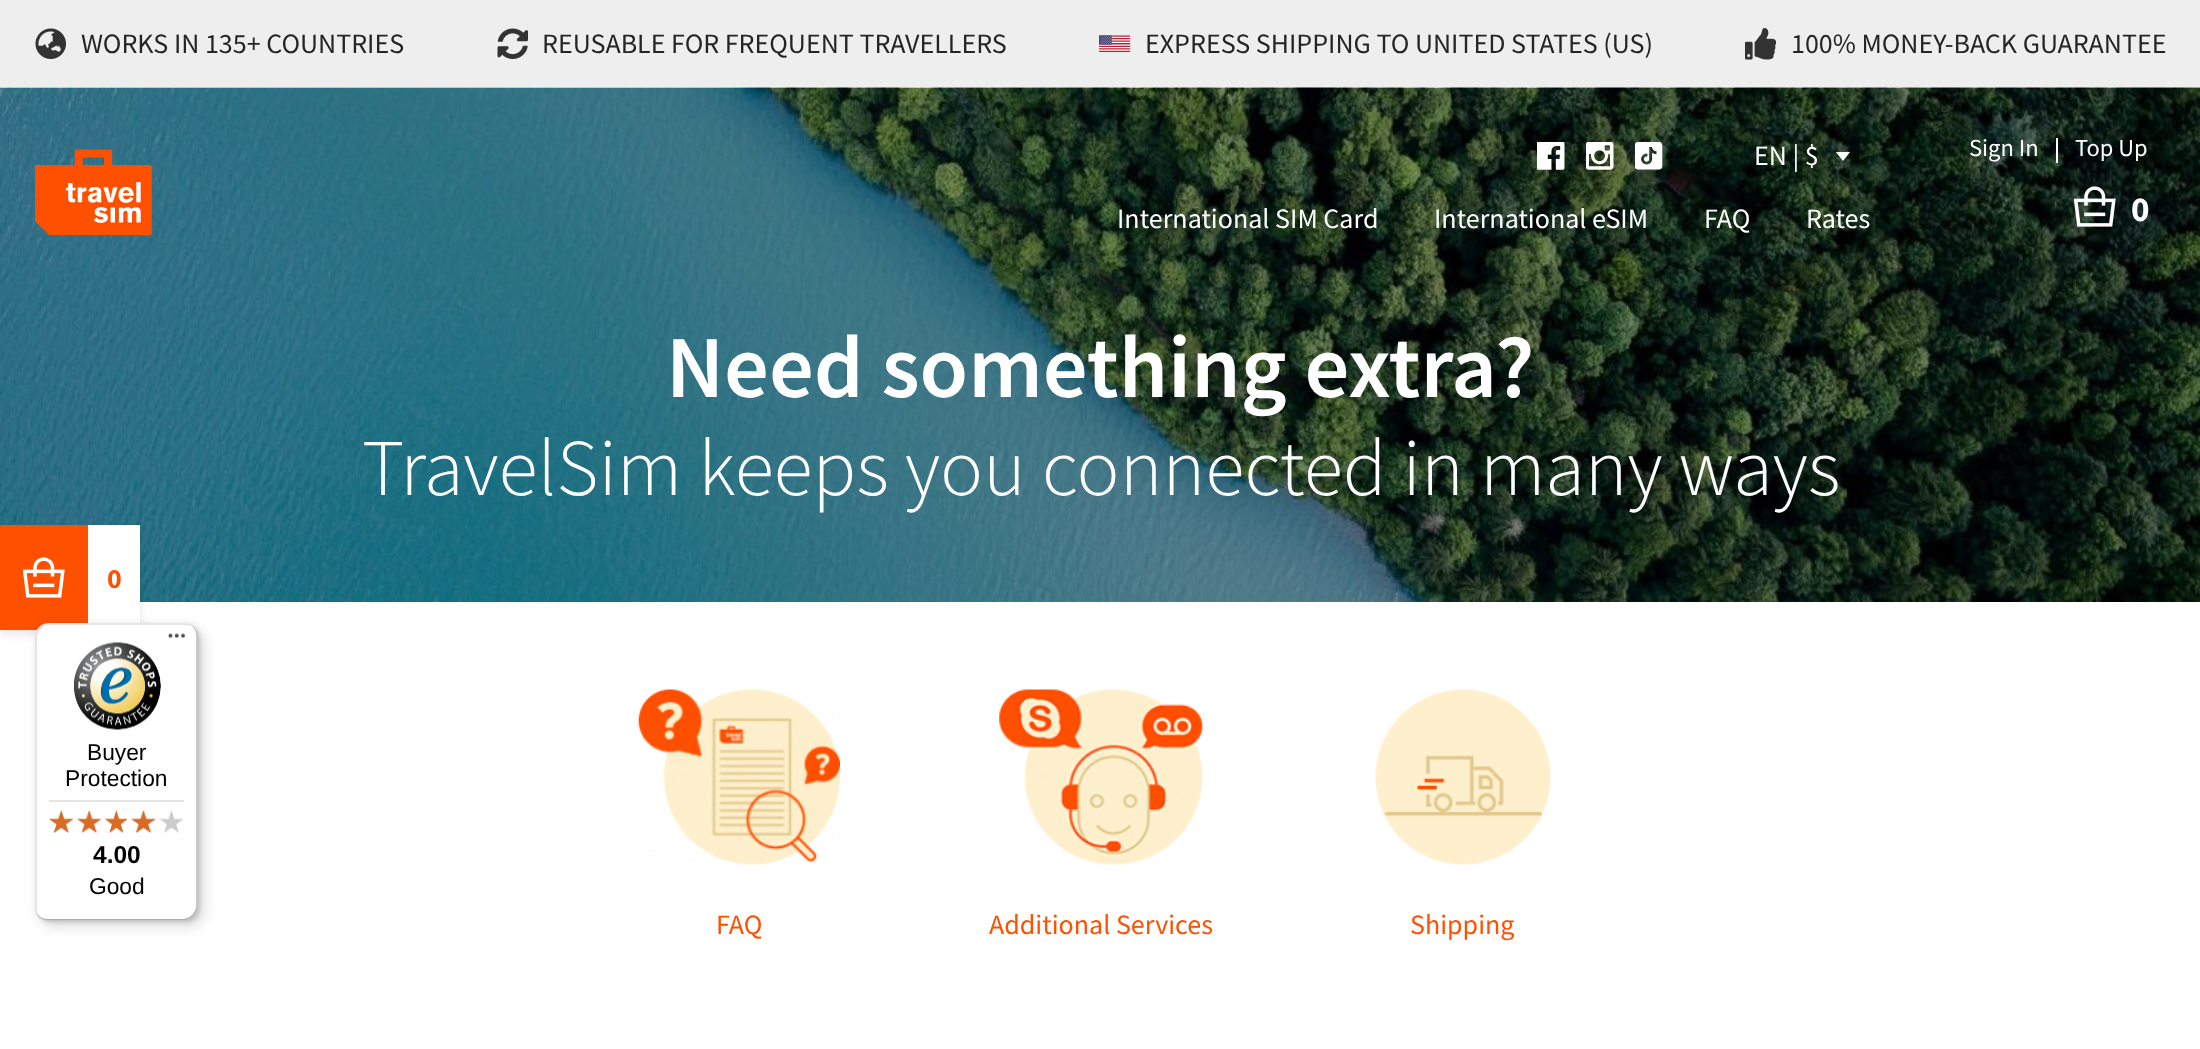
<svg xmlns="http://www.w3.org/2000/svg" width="2200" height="1049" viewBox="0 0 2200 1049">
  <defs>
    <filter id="blur1" x="-50%" y="-200%" width="200%" height="500%"><feGaussianBlur stdDeviation="4.5"/></filter>
    <filter id="blur2" x="-50%" y="-200%" width="200%" height="500%"><feGaussianBlur stdDeviation="7"/></filter>
    <filter id="blur3" x="-50%" y="-200%" width="200%" height="500%"><feGaussianBlur stdDeviation="2"/></filter>
  </defs>
  <rect width="100%" height="100%" fill="#ffffff"/>
  <rect x="0" y="0" width="2200" height="88" fill="#eeeeee"/>
  <image x="35" y="28" width="31" height="31" href="img1.png"/>
  <text x="81" y="53" font-family="Source Sans Pro" font-size="28" fill="#252525">WORKS IN 135+ COUNTRIES</text>
  <image x="497" y="28" width="31" height="31" href="img2.png"/>
  <text x="542" y="53" font-family="Source Sans Pro" font-size="28" fill="#252525">REUSABLE FOR FREQUENT TRAVELLERS</text>
  <image x="1099" y="35" width="32" height="17" href="img3.png"/>
  <text x="1145" y="53" font-family="Source Sans Pro" font-size="28" fill="#252525">EXPRESS SHIPPING TO UNITED STATES (US)</text>
  <image x="1745" y="28" width="31" height="32" href="img4.png"/>
  <text x="1791" y="53" font-family="Source Sans Pro" font-size="28" fill="#252525">100% MONEY-BACK GUARANTEE</text>
  <image x="0" y="87" width="2200" height="515" href="img11.png"/>
  <image x="35" y="149" width="117" height="87" href="img5.png"/>
  <image x="1537" y="142" width="28" height="28" href="img6.png"/>
  <image x="1586" y="142" width="28" height="28" href="img7.png"/>
  <image x="1635" y="142" width="28" height="28" href="img8.png"/>
  <text x="1754" y="165" font-family="Source Sans Pro" font-size="28" fill="#ffffff">EN | $</text>
  <path d="M1836 152H1850L1843 161Z" fill="#ffffff"/>
  <text x="1117" y="228" font-family="Source Sans Pro" font-size="28" fill="#ffffff">International SIM Card</text>
  <text x="1434" y="228" font-family="Source Sans Pro" font-size="28" fill="#ffffff">International eSIM</text>
  <text x="1704" y="228" font-family="Source Sans Pro" font-size="28" fill="#ffffff">FAQ</text>
  <text x="1806" y="228" font-family="Source Sans Pro" font-size="28" fill="#ffffff">Rates</text>
  <text x="1969" y="156" font-family="Source Sans Pro" font-size="24.5" fill="#ffffff">Sign In</text>
  <rect x="2056" y="138" width="2" height="25" fill="#ffffff"/>
  <text x="2075" y="156" font-family="Source Sans Pro" font-size="24.5" fill="#ffffff">Top Up</text>
  <image x="2074" y="186" width="42" height="41" href="img9.png"/>
  <text x="2131" y="221" font-family="Source Sans Pro" font-size="35" font-weight="bold" fill="#ffffff">0</text>
  <rect x="0" y="529" width="140" height="105" fill="#000000" fill-opacity="0.1" filter="url(#blur1)"/>
  <rect x="0" y="525" width="88" height="105" fill="#ff5000"/>
  <image x="23" y="557" width="42" height="41" href="img10.png"/>
  <rect x="88" y="525" width="52" height="98" fill="#ffffff"/>
  <text x="107" y="588" font-family="Source Sans Pro" font-size="28" font-weight="bold" fill="#ff5000">0</text>
  <text x="666" y="397" font-family="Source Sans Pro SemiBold" font-size="88.5" font-weight="600" fill="#ffffff">Need something extra?</text>
  <text x="362" y="495" font-family="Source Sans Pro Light" font-size="80.5" font-weight="300" fill="#ffffff">TravelSim keeps you connected in many ways</text>
  <image x="638" y="689" width="202" height="176" href="img12.png"/>
  <text x="716" y="934" font-family="Source Sans Pro" font-size="28" fill="#ff5000">FAQ</text>
  <image x="999" y="689" width="204" height="176" href="img13.png"/>
  <text x="989" y="934" font-family="Source Sans Pro" font-size="28" fill="#ff5000">Additional Services</text>
  <image x="1375" y="689" width="176" height="176" href="img14.png"/>
  <text x="1410" y="934" font-family="Source Sans Pro" font-size="28" fill="#ff5000">Shipping</text>
  <rect x="40" y="628" width="163" height="298" rx="14" fill="#000000" fill-opacity="0.15" filter="url(#blur2)"/>
  <rect x="37" y="625" width="163" height="297" rx="14" fill="#000000" fill-opacity="0.15" filter="url(#blur3)"/>
  <rect x="35" y="623" width="163" height="298" rx="14" fill="#ffffff"/>
  <path d="M51 625H186C189 625 193 626 195 629C193 625 189 623 184 623H49C41 623 35 629 35 637V907C35 913 38 917 43 920C39 917 37 913 37 908V639C37 631 43 625 51 625Z" fill="#000000" fill-opacity="0.1"/>
  <path d="M37 914C39 918 44 921 49 921H184C192 921 198 915 198 907V637C198 632 196 628 192 626C195 628 196 632 196 635V905C196 912 190 919 182 919H47C43 919 40 917 37 914Z" fill="#000000" fill-opacity="0.2"/>
  <path d="M36 913C39 918 43 921 49 921H184C192 921 198 915 198 907V637C198 632 196 628 192 626C195 628 197 632 197 636V905C197 913 190 919 183 919H48C43 919 39 917 36 913Z" fill="#323232" fill-opacity="0.2"/>
  <path d="M38 915C40 919 44 921 49 921H184C192 921 198 915 198 907V637C198 633 197 630 194 628C196 630 197 633 197 636V906C197 913 191 920 183 920H48C44 920 40 918 38 915Z" fill="#ffffff" fill-opacity="0.3"/>
  <image x="168" y="633" width="17" height="5" href="img15.png"/>
  <image x="74" y="642" width="87" height="88" href="img16.png"/>
  <text x="87" y="760" font-family="Liberation Sans" font-size="22.75" fill="#000000">Buyer</text>
  <text x="65" y="786" font-family="Liberation Sans" font-size="22.75" fill="#000000">Protection</text>
  <rect x="49" y="800" width="135" height="2" fill="#e5e5e5"/>
  <image x="49" y="810" width="24" height="23" href="img17.png"/>
  <image x="77" y="810" width="24" height="23" href="img18.png"/>
  <image x="105" y="810" width="22" height="23" href="img19.png"/>
  <image x="131" y="810" width="25" height="23" href="img20.png"/>
  <image x="160" y="810" width="23" height="23" href="img21.png"/>
  <image x="49" y="810" width="24" height="23" href="img22.png"/>
  <image x="77" y="810" width="25" height="23" href="img23.png"/>
  <image x="105" y="810" width="23" height="23" href="img24.png"/>
  <image x="131" y="810" width="25" height="23" href="img25.png"/>
  <image x="159" y="818" width="1" height="2" href="img26.png"/>
  <text x="93" y="863" font-family="Liberation Sans" font-size="24.5" font-weight="bold" fill="#000000">4.00</text>
  <text x="89" y="894" font-family="Liberation Sans" font-size="22.75" fill="#000000">Good</text>
</svg>
